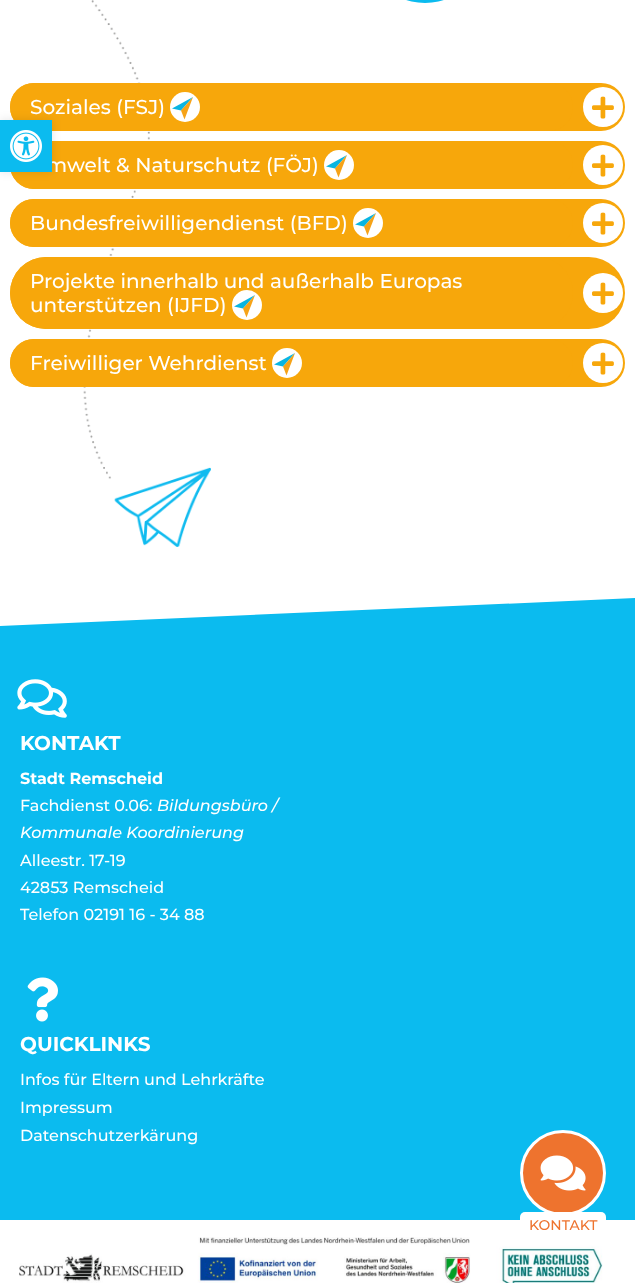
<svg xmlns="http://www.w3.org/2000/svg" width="635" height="1283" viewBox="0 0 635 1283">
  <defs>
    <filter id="blur1" x="-50%" y="-200%" width="200%" height="500%"><feGaussianBlur stdDeviation="5"/></filter>
  </defs>
  <rect width="100%" height="100%" fill="#ffffff"/>
  <image x="83" y="0" width="128" height="547" href="img1.png"/>
  <rect x="390" y="-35" width="70" height="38" rx="35" fill="#0bbbef"/>
  <rect x="10" y="83" width="615" height="48" rx="5" fill="#ffffff"/>
  <rect x="10" y="83" width="615" height="48" rx="24" fill="#f7a70b"/>
  <rect x="10" y="83" width="563" height="48" rx="24" fill="#f7a70b"/>
  <text x="30" y="114" font-family="Montserrat" font-size="20" font-weight="500" fill="#ffffff">Soziales (FSJ)</text>
  <circle cx="185" cy="107" r="15" fill="#ffffff"/>
  <path d="M172 108.5L193 97L181 110.5Z" fill="#09b5e2"/>
  <path d="M181 110.5L184.5 119.5L193 97Z" fill="#f6a318"/>
  <circle cx="603" cy="107" r="20" fill="#ffffff"/>
  <image x="592" y="96" width="22" height="23" href="img2.png"/>
  <rect x="10" y="141" width="615" height="48" rx="5" fill="#ffffff"/>
  <rect x="10" y="141" width="615" height="48" rx="24" fill="#f7a70b"/>
  <rect x="10" y="141" width="563" height="48" rx="24" fill="#f7a70b"/>
  <text x="46" y="172" font-family="Montserrat" font-size="20" font-weight="500" fill="#ffffff">mwelt &amp; Naturschutz (FÖJ)</text>
  <circle cx="339" cy="165" r="15" fill="#ffffff"/>
  <path d="M326 166.5L347 155L335 168.5Z" fill="#09b5e2"/>
  <path d="M335 168.5L338.5 177.5L347 155Z" fill="#f6a318"/>
  <circle cx="603" cy="165" r="20" fill="#ffffff"/>
  <image x="592" y="154" width="22" height="23" href="img2.png"/>
  <rect x="10" y="199" width="615" height="48" rx="5" fill="#ffffff"/>
  <rect x="10" y="199" width="615" height="48" rx="24" fill="#f7a70b"/>
  <rect x="10" y="199" width="563" height="48" rx="24" fill="#f7a70b"/>
  <text x="30" y="230" font-family="Montserrat" font-size="20" font-weight="500" fill="#ffffff">Bundesfreiwilligendienst (BFD)</text>
  <circle cx="368" cy="223" r="15" fill="#ffffff"/>
  <path d="M355 224.5L376 213L364 226.5Z" fill="#09b5e2"/>
  <path d="M364 226.5L367.5 235.5L376 213Z" fill="#f6a318"/>
  <circle cx="603" cy="223" r="20" fill="#ffffff"/>
  <image x="592" y="212" width="22" height="23" href="img2.png"/>
  <rect x="10" y="257" width="615" height="72" rx="5" fill="#ffffff"/>
  <rect x="10" y="257" width="615" height="72" rx="36" fill="#f7a70b"/>
  <rect x="10" y="257" width="563" height="72" rx="36" fill="#f7a70b"/>
  <text x="30" y="288" font-family="Montserrat" font-size="20" font-weight="500" fill="#ffffff">Projekte innerhalb und außerhalb Europas</text>
  <text x="30" y="312" font-family="Montserrat" font-size="20" font-weight="500" fill="#ffffff">unterstützen (IJFD)</text>
  <circle cx="247" cy="305" r="15" fill="#ffffff"/>
  <path d="M234 306.5L255 295L243 308.5Z" fill="#09b5e2"/>
  <path d="M243 308.5L246.5 317.5L255 295Z" fill="#f6a318"/>
  <circle cx="603" cy="293" r="20" fill="#ffffff"/>
  <image x="592" y="282" width="22" height="23" href="img2.png"/>
  <rect x="10" y="339" width="615" height="48" rx="5" fill="#ffffff"/>
  <rect x="10" y="339" width="615" height="48" rx="24" fill="#f7a70b"/>
  <rect x="10" y="339" width="563" height="48" rx="24" fill="#f7a70b"/>
  <text x="30" y="370" font-family="Montserrat" font-size="20" font-weight="500" fill="#ffffff">Freiwilliger Wehrdienst</text>
  <circle cx="287" cy="363" r="15" fill="#ffffff"/>
  <path d="M274 364.5L295 353L283 366.5Z" fill="#09b5e2"/>
  <path d="M283 366.5L286.5 375.5L295 353Z" fill="#f6a318"/>
  <circle cx="603" cy="363" r="20" fill="#ffffff"/>
  <image x="592" y="352" width="22" height="23" href="img2.png"/>
  <rect x="0" y="120" width="52" height="52" fill="#000000" fill-opacity="0.1" filter="url(#blur1)"/>
  <rect x="0" y="120" width="52" height="52" fill="#0bbbef"/>
  <image x="10" y="130" width="32" height="32" href="img3.png"/>
  <path d="M0 626V628H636V598Z" fill="#0bbbef"/>
  <rect x="0" y="628" width="635" height="592" fill="#0bbbef"/>
  <image x="17" y="679" width="50" height="39" href="img4.png"/>
  <text x="20" y="750" font-family="Montserrat" font-size="20" font-weight="bold" fill="#ffffff">KONTAKT</text>
  <text x="20" y="784" font-family="Montserrat" font-size="16" font-weight="bold" fill="#ffffff">Stadt Remscheid</text>
  <text x="20" y="811" font-family="Montserrat" font-size="16" font-weight="500" fill="#ffffff">Fachdienst 0.06:</text>
  <text x="157" y="811" font-family="Montserrat" font-size="16" font-weight="500" font-style="italic" fill="#ffffff">Bildungsbüro /</text>
  <text x="20" y="838" font-family="Montserrat" font-size="16" font-weight="500" font-style="italic" fill="#ffffff">Kommunale Koordinierung</text>
  <text x="20" y="866" font-family="Montserrat" font-size="16" font-weight="500" fill="#ffffff">Alleestr. 17-19</text>
  <text x="20" y="893" font-family="Montserrat" font-size="16" font-weight="500" fill="#ffffff">42853 Remscheid</text>
  <text x="20" y="920" font-family="Montserrat" font-size="16" font-weight="500" fill="#ffffff">Telefon 02191 16 - 34 88</text>
  <image x="27" y="977" width="31" height="45" href="img5.png"/>
  <text x="20" y="1051" font-family="Montserrat" font-size="20" font-weight="bold" fill="#ffffff">QUICKLINKS</text>
  <text x="20" y="1085" font-family="Montserrat" font-size="16" font-weight="500" fill="#ffffff">Infos für Eltern und Lehrkräfte</text>
  <text x="20" y="1113" font-family="Montserrat" font-size="16" font-weight="500" fill="#ffffff">Impressum</text>
  <text x="20" y="1141" font-family="Montserrat" font-size="16" font-weight="500" fill="#ffffff">Datenschutzerkärung</text>
  <circle cx="563" cy="1173" r="41.5" fill="#ee732e" stroke="#ffffff" stroke-width="3"/>
  <image x="540" y="1155" width="46" height="36" href="img6.png"/>
  <image x="19" y="1237" width="584" height="46" href="img7.png"/>
  <rect x="520" y="1212" width="86" height="27" rx="5" fill="#ffffff"/>
  <text x="529" y="1230" font-family="Montserrat" font-size="14" font-weight="500" fill="#ee732e">KONTAKT</text>
</svg>
